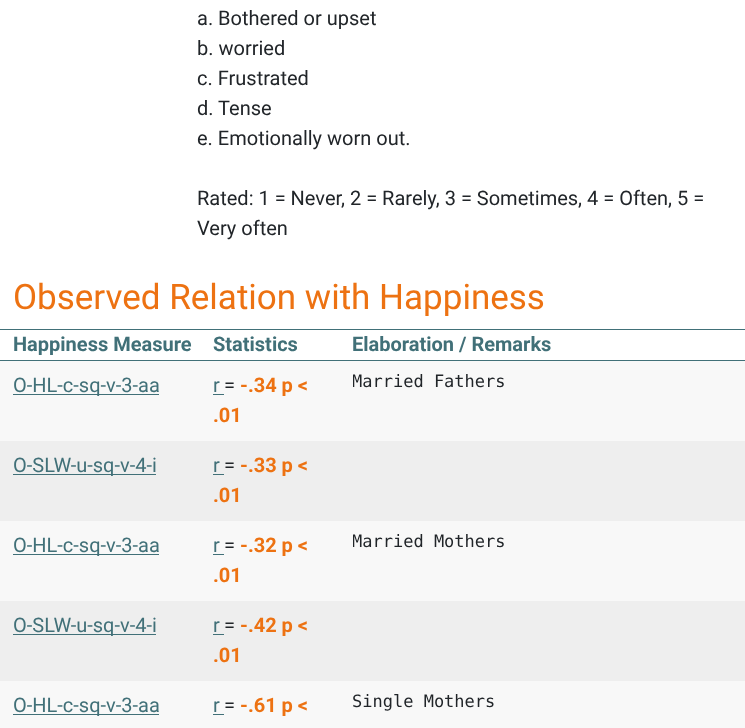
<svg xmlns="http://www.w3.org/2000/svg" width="745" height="728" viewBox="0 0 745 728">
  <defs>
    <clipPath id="clip1"><rect x="353" y="371" width="380" height="60"/></clipPath>
    <clipPath id="clip2"><rect x="353" y="531" width="380" height="60"/></clipPath>
  </defs>
  <rect width="100%" height="100%" fill="#ffffff"/>
  <text x="197" y="25" font-family="Roboto" font-size="20" fill="#212529">a. Bothered or upset</text>
  <text x="197" y="55" font-family="Roboto" font-size="20" fill="#212529">b. worried</text>
  <text x="197" y="85" font-family="Roboto" font-size="20" fill="#212529">c. Frustrated</text>
  <text x="197" y="115" font-family="Roboto" font-size="20" fill="#212529">d. Tense</text>
  <text x="197" y="145" font-family="Roboto" font-size="20" fill="#212529">e. Emotionally worn out.</text>
  <text x="197" y="205" font-family="Roboto" font-size="20" fill="#212529">Rated: 1 = Never, 2 = Rarely, 3 = Sometimes, 4 = Often, 5 =</text>
  <text x="197" y="235" font-family="Roboto" font-size="20" fill="#212529">Very often</text>
  <text x="13" y="309" font-family="Roboto" font-size="35" fill="#ed7212">Observed Relation with Happiness</text>
  <rect x="0" y="329" width="745" height="1" fill="#417078"/>
  <rect x="0" y="360" width="745" height="1" fill="#417078"/>
  <text x="13" y="351" font-family="Roboto" font-size="20" font-weight="bold" fill="#417078">Happiness Measure</text>
  <text x="213" y="351" font-family="Roboto" font-size="20" font-weight="bold" fill="#417078">Statistics</text>
  <text x="352" y="351" font-family="Roboto" font-size="20" font-weight="bold" fill="#417078">Elaboration / Remarks</text>
  <rect x="0" y="361" width="745" height="80" fill="#f8f8f8"/>
  <rect x="13" y="394" width="146" height="1" fill="#417078"/>
  <text x="13" y="392" font-family="Roboto" font-size="20" fill="#417078">O-HL-c-sq-v-3-aa</text>
  <text x="213" y="392" font-family="Roboto" font-size="20" fill="#417078">r</text>
  <rect x="213" y="394" width="11" height="1" fill="#417078"/>
  <text x="224" y="392" font-family="Roboto" font-size="20" fill="#212529">=</text>
  <text x="240" y="392" font-family="Roboto" font-size="20" font-weight="bold" fill="#ed7212">-.34 p &lt;</text>
  <text x="213" y="422" font-family="Roboto" font-size="20" font-weight="bold" fill="#ed7212">.01</text>
  <g clip-path="url(#clip1)">
    <text x="352" y="387" font-family="DejaVu Sans Mono" font-size="17" fill="#212529">Married Fathers</text>
  </g>
  <rect x="0" y="441" width="745" height="80" fill="#eeeeee"/>
  <rect x="13" y="474" width="143" height="1" fill="#417078"/>
  <text x="13" y="472" font-family="Roboto" font-size="20" fill="#417078">O-SLW-u-sq-v-4-i</text>
  <text x="213" y="472" font-family="Roboto" font-size="20" fill="#417078">r</text>
  <rect x="213" y="474" width="11" height="1" fill="#417078"/>
  <text x="224" y="472" font-family="Roboto" font-size="20" fill="#212529">=</text>
  <text x="240" y="472" font-family="Roboto" font-size="20" font-weight="bold" fill="#ed7212">-.33 p &lt;</text>
  <text x="213" y="502" font-family="Roboto" font-size="20" font-weight="bold" fill="#ed7212">.01</text>
  <rect x="0" y="521" width="745" height="80" fill="#f8f8f8"/>
  <rect x="13" y="554" width="146" height="1" fill="#417078"/>
  <text x="13" y="552" font-family="Roboto" font-size="20" fill="#417078">O-HL-c-sq-v-3-aa</text>
  <text x="213" y="552" font-family="Roboto" font-size="20" fill="#417078">r</text>
  <rect x="213" y="554" width="11" height="1" fill="#417078"/>
  <text x="224" y="552" font-family="Roboto" font-size="20" fill="#212529">=</text>
  <text x="240" y="552" font-family="Roboto" font-size="20" font-weight="bold" fill="#ed7212">-.32 p &lt;</text>
  <text x="213" y="582" font-family="Roboto" font-size="20" font-weight="bold" fill="#ed7212">.01</text>
  <g clip-path="url(#clip2)">
    <text x="352" y="547" font-family="DejaVu Sans Mono" font-size="17" fill="#212529">Married Mothers</text>
  </g>
  <rect x="0" y="601" width="745" height="80" fill="#eeeeee"/>
  <rect x="13" y="634" width="143" height="1" fill="#417078"/>
  <text x="13" y="632" font-family="Roboto" font-size="20" fill="#417078">O-SLW-u-sq-v-4-i</text>
  <text x="213" y="632" font-family="Roboto" font-size="20" fill="#417078">r</text>
  <rect x="213" y="634" width="11" height="1" fill="#417078"/>
  <text x="224" y="632" font-family="Roboto" font-size="20" fill="#212529">=</text>
  <text x="240" y="632" font-family="Roboto" font-size="20" font-weight="bold" fill="#ed7212">-.42 p &lt;</text>
  <text x="213" y="662" font-family="Roboto" font-size="20" font-weight="bold" fill="#ed7212">.01</text>
  <rect x="0" y="681" width="745" height="47" fill="#f8f8f8"/>
  <rect x="13" y="714" width="146" height="1" fill="#417078"/>
  <text x="13" y="712" font-family="Roboto" font-size="20" fill="#417078">O-HL-c-sq-v-3-aa</text>
  <text x="213" y="712" font-family="Roboto" font-size="20" fill="#417078">r</text>
  <rect x="213" y="714" width="11" height="1" fill="#417078"/>
  <text x="224" y="712" font-family="Roboto" font-size="20" fill="#212529">=</text>
  <text x="240" y="712" font-family="Roboto" font-size="20" font-weight="bold" fill="#ed7212">-.61 p &lt;</text>
  <text x="352" y="707" font-family="DejaVu Sans Mono" font-size="17" fill="#212529">Single Mothers</text>
</svg>
